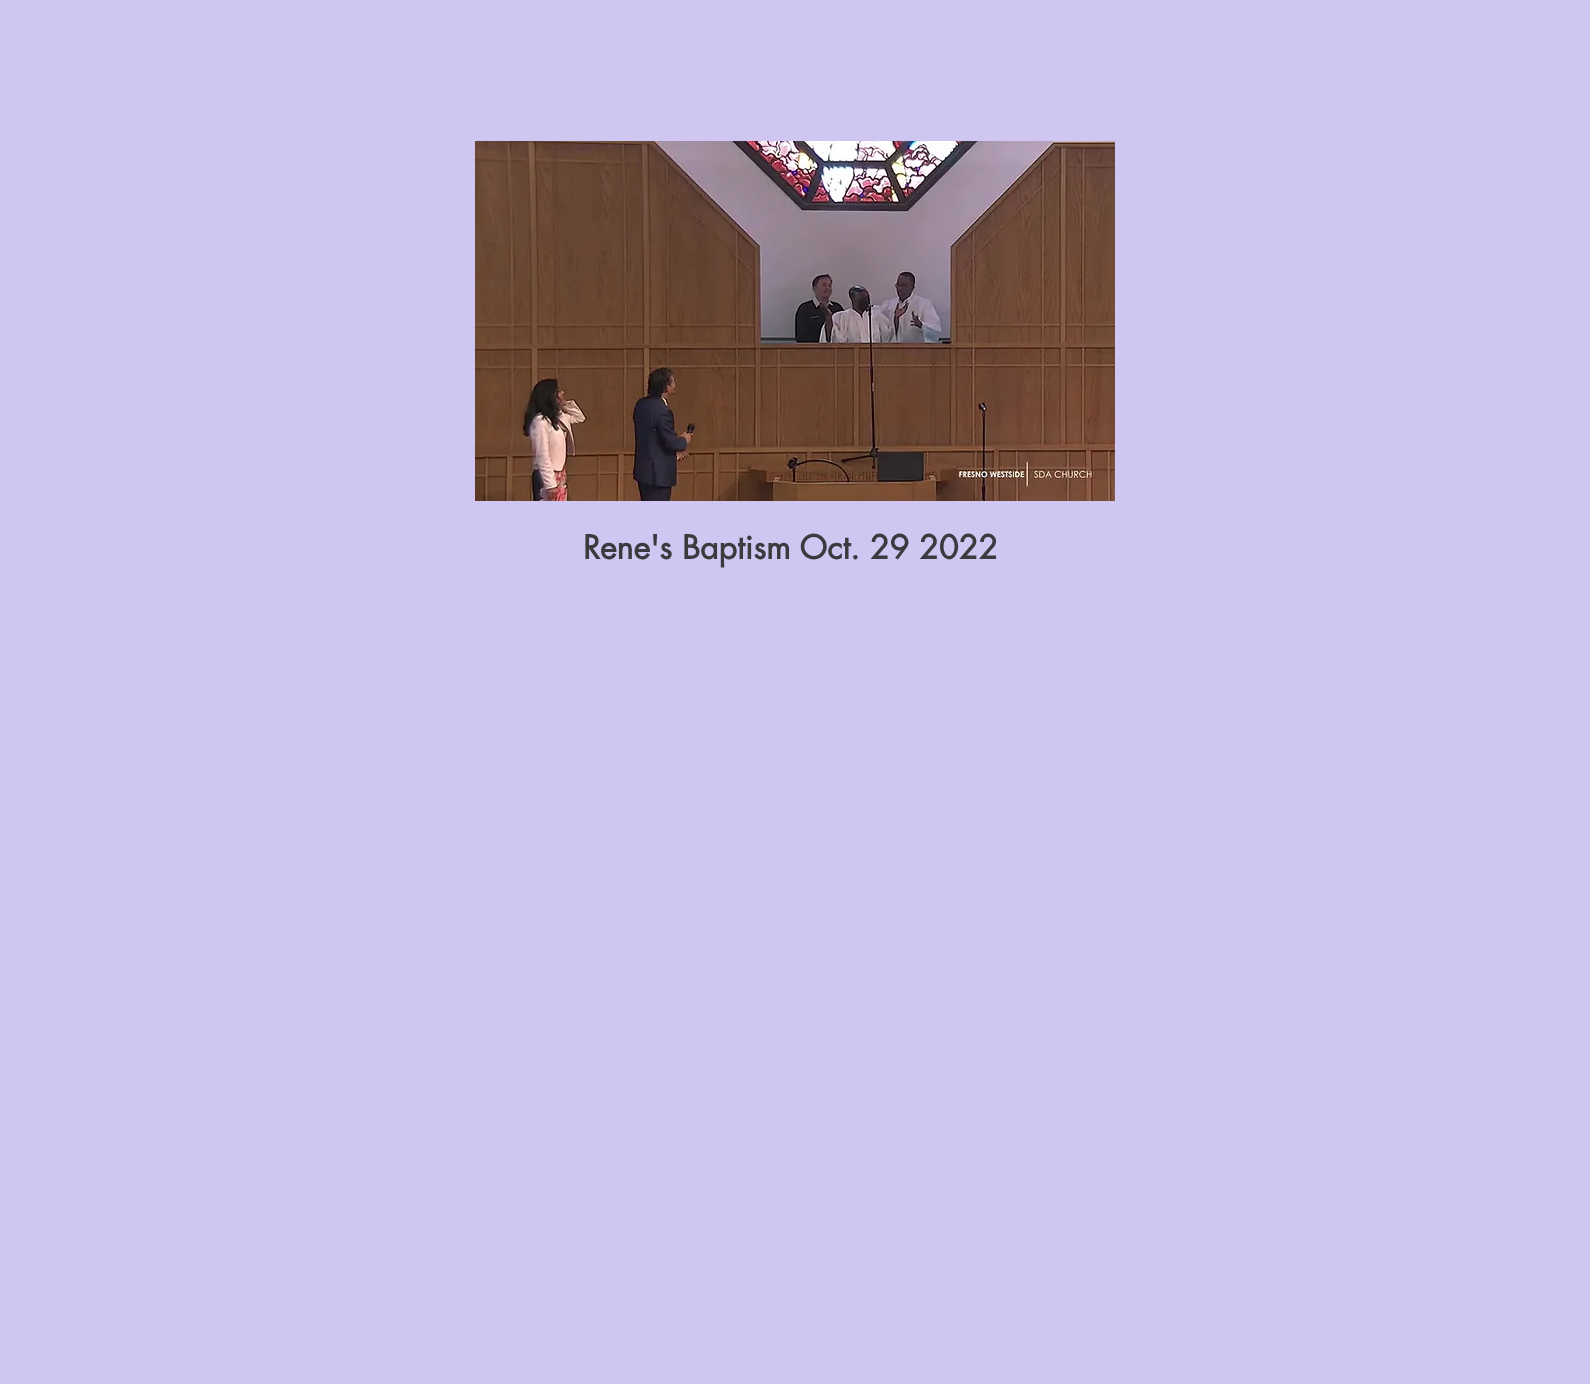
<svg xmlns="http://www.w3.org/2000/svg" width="1590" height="1384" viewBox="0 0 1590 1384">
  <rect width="100%" height="100%" fill="#cfc7f2"/>
  <image x="475" y="141" width="640" height="360" href="img1.png"/>
  <text x="583" y="559" font-family="futura" font-size="32" font-weight="bold" fill="#3a3b3f">Rene's Baptism Oct. 29 2022</text>
</svg>
